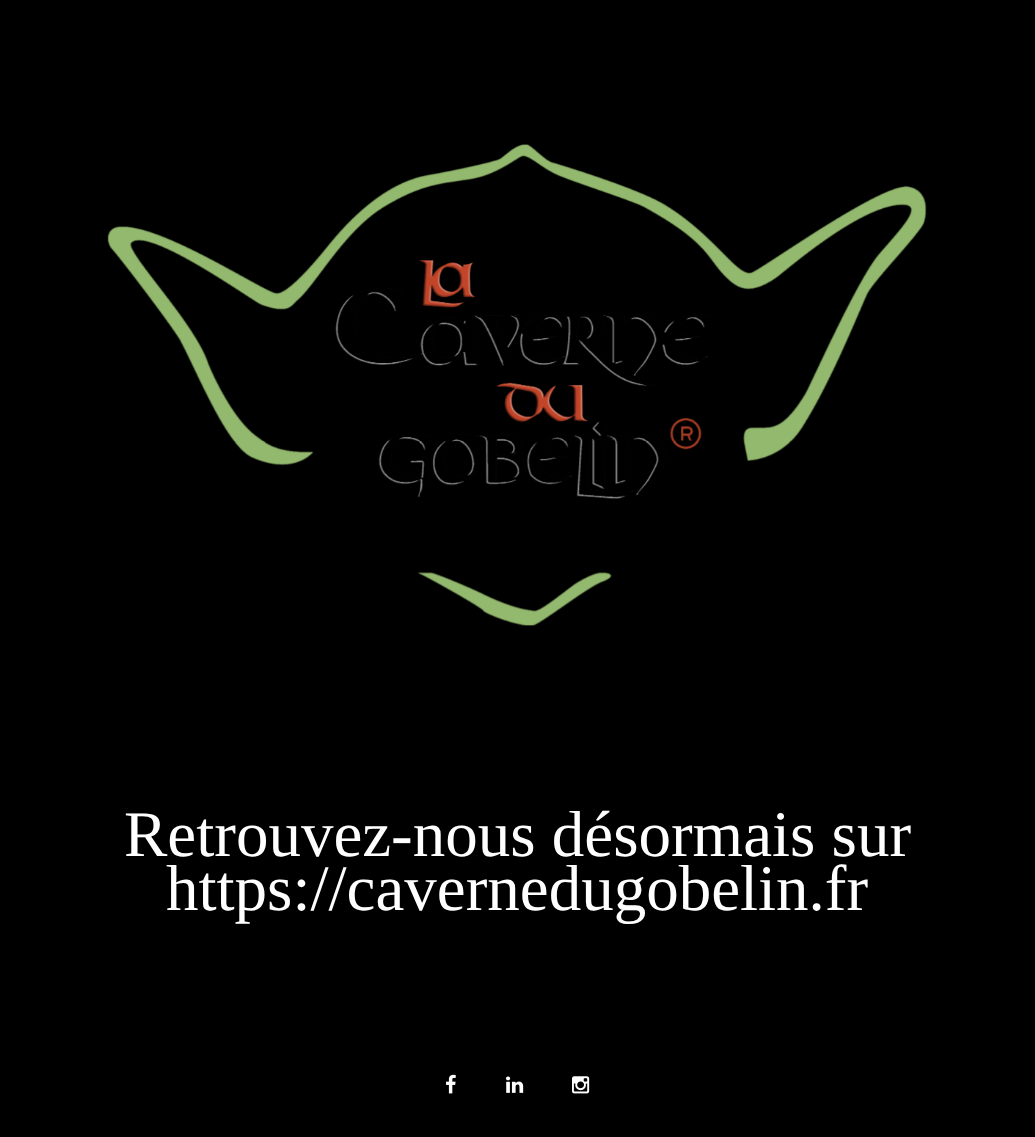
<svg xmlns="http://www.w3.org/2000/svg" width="1035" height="1137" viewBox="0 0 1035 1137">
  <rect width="100%" height="100%" fill="#000000"/>
  <image x="107" y="144" width="820" height="482" href="img1.png"/>
  <text x="124" y="856" font-family="Liberation Serif" font-size="65" fill="#ffffff">Retrouvez-nous désormais sur</text>
  <text x="166" y="910" font-family="Liberation Serif" font-size="65" fill="#ffffff">https://cavernedugobelin.fr</text>
  <image x="446" y="1074" width="10" height="20" href="img2.png"/>
  <image x="506" y="1076" width="18" height="17" href="img3.png"/>
  <image x="572" y="1076" width="18" height="18" href="img4.png"/>
</svg>
